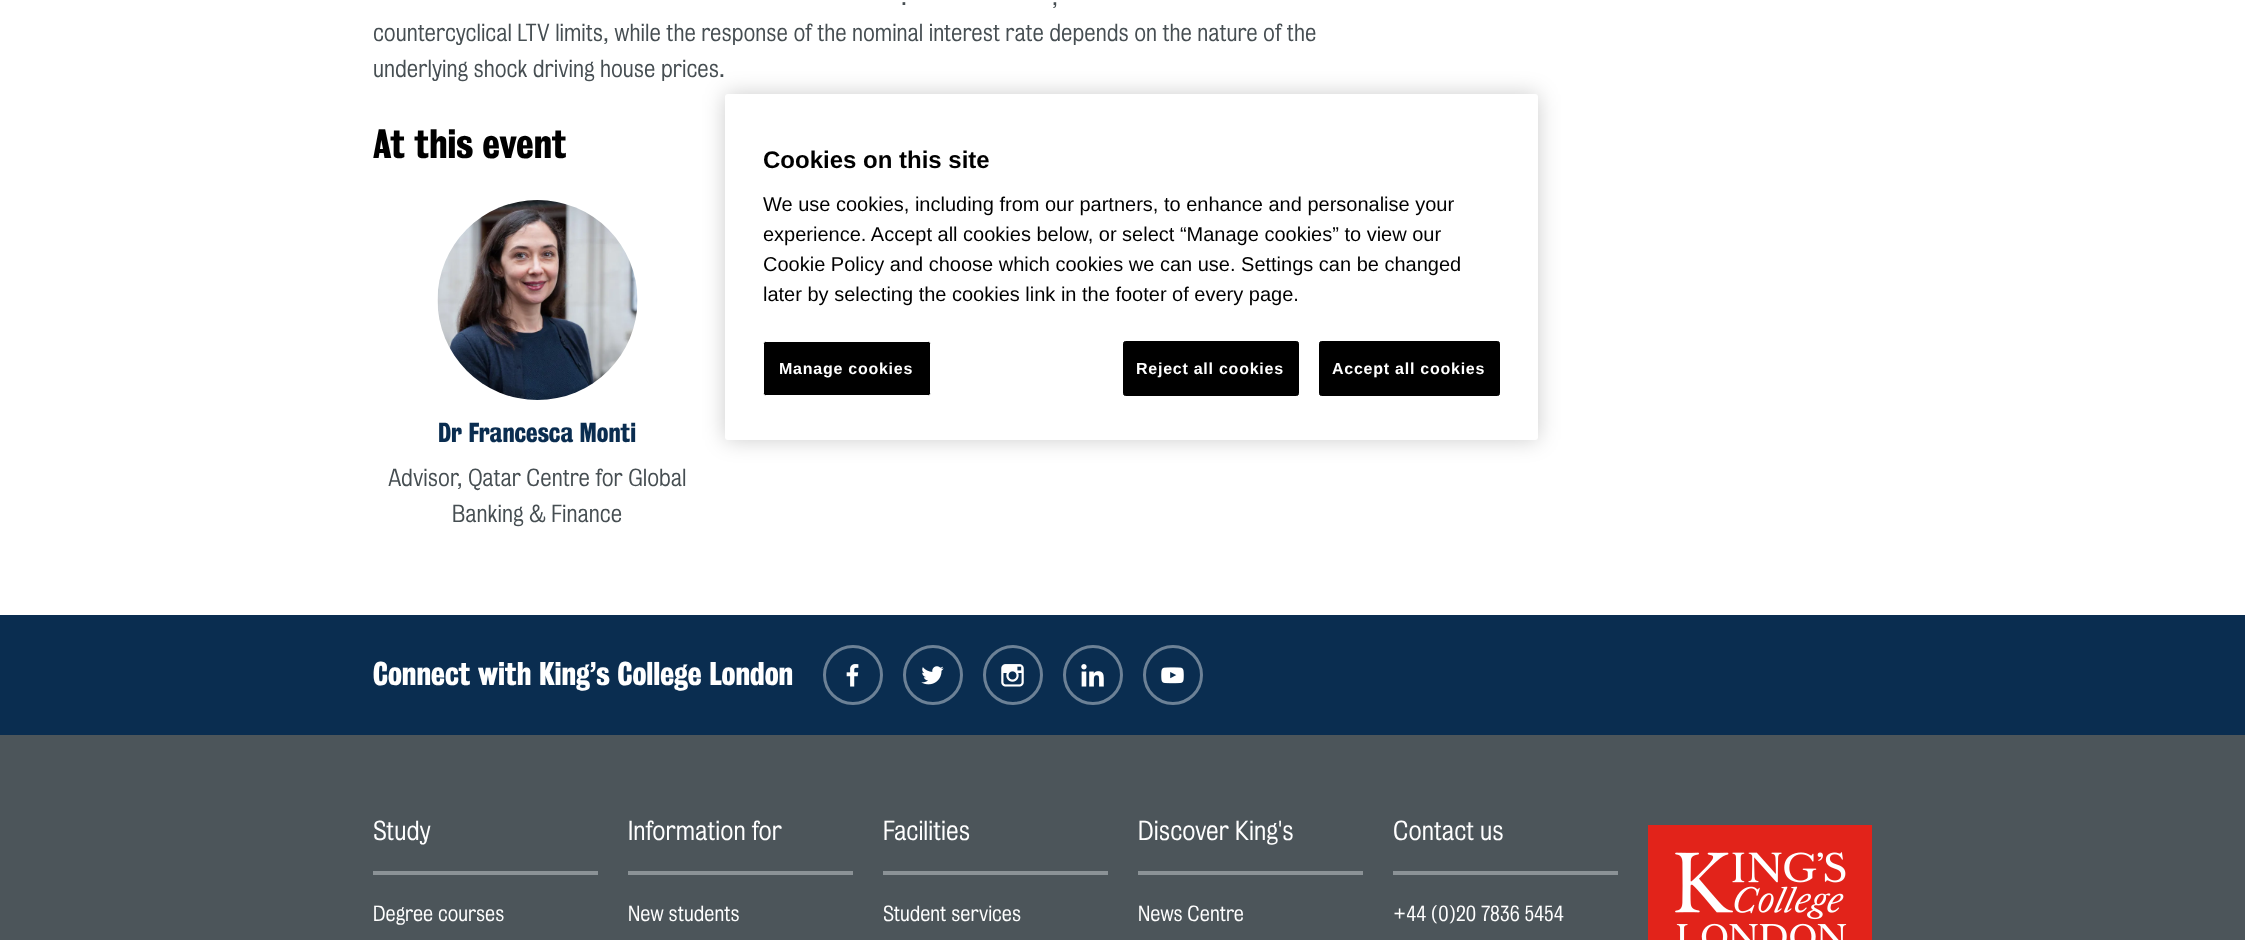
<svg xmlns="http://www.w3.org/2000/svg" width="2245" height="940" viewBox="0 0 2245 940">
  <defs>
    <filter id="blur1" x="-50%" y="-200%" width="200%" height="500%"><feGaussianBlur stdDeviation="11"/></filter>
  </defs>
  <rect width="100%" height="100%" fill="#ffffff"/>
  <text x="901" y="5" font-family="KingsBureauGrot" font-size="22.5" font-weight="300" fill="#464e52">.</text>
  <text x="1052" y="5" font-family="KingsBureauGrot" font-size="22.5" font-weight="300" fill="#464e52">,</text>
  <text x="373" y="41" font-family="KingsBureauGrot" font-size="22.5" font-weight="300" fill="#464e52">countercyclical LTV limits, while the response of the nominal interest rate depends on the nature of the</text>
  <text x="373" y="77" font-family="KingsBureauGrot" font-size="22.5" font-weight="300" fill="#464e52">underlying shock driving house prices.</text>
  <text x="373" y="158" font-family="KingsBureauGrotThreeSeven" font-size="37.5" font-weight="bold" fill="#000000">At this event</text>
  <image x="437" y="200" width="201" height="200" href="img1.png"/>
  <text x="438" y="442" font-family="KingsBureauGrotThreeSeven" font-size="25" font-weight="bold" fill="#0a2d50">Dr Francesca Monti</text>
  <text x="388" y="486" font-family="KingsBureauGrot" font-size="22.5" font-weight="300" fill="#464e52">Advisor, Qatar Centre for Global</text>
  <text x="452" y="522" font-family="KingsBureauGrot" font-size="22.5" font-weight="300" fill="#464e52">Banking &amp; Finance</text>
  <rect x="0" y="615" width="2245" height="120" fill="#0a2d50"/>
  <text x="373" y="685" font-family="KingsBureauGrotThreeSeven" font-size="30" font-weight="bold" fill="#ffffff">Connect with King’s College London</text>
  <circle cx="853" cy="675" r="28.5" fill="none" stroke="#6c8196" stroke-width="3"/>
  <image x="846" y="664" width="13" height="23" href="img2.png"/>
  <circle cx="933" cy="675" r="28.5" fill="none" stroke="#6c8196" stroke-width="3"/>
  <image x="921" y="666" width="23" height="19" href="img3.png"/>
  <circle cx="1013" cy="675" r="28.5" fill="none" stroke="#6c8196" stroke-width="3"/>
  <image x="1001" y="664" width="23" height="23" href="img4.png"/>
  <circle cx="1093" cy="675" r="28.5" fill="none" stroke="#6c8196" stroke-width="3"/>
  <image x="1081" y="664" width="23" height="23" href="img5.png"/>
  <circle cx="1173" cy="675" r="28.5" fill="none" stroke="#6c8196" stroke-width="3"/>
  <image x="1161" y="667" width="23" height="17" href="img6.png"/>
  <rect x="0" y="735" width="2245" height="205" fill="#4c555a"/>
  <rect x="373" y="871" width="225" height="4" fill="#8b9296"/>
  <text x="373" y="840" font-family="KingsBureauGrot" font-size="25" font-weight="300" fill="#ffffff">Study</text>
  <text x="373" y="921" font-family="KingsBureauGrot" font-size="20" font-weight="300" fill="#ffffff">Degree courses</text>
  <rect x="628" y="871" width="225" height="4" fill="#8b9296"/>
  <text x="628" y="840" font-family="KingsBureauGrot" font-size="25" font-weight="300" fill="#ffffff">Information for</text>
  <text x="628" y="921" font-family="KingsBureauGrot" font-size="20" font-weight="300" fill="#ffffff">New students</text>
  <rect x="883" y="871" width="225" height="4" fill="#8b9296"/>
  <text x="883" y="840" font-family="KingsBureauGrot" font-size="25" font-weight="300" fill="#ffffff">Facilities</text>
  <text x="883" y="921" font-family="KingsBureauGrot" font-size="20" font-weight="300" fill="#ffffff">Student services</text>
  <rect x="1138" y="871" width="225" height="4" fill="#8b9296"/>
  <text x="1138" y="840" font-family="KingsBureauGrot" font-size="25" font-weight="300" fill="#ffffff">Discover King's</text>
  <text x="1138" y="921" font-family="KingsBureauGrot" font-size="20" font-weight="300" fill="#ffffff">News Centre</text>
  <rect x="1393" y="871" width="225" height="4" fill="#8b9296"/>
  <text x="1393" y="840" font-family="KingsBureauGrot" font-size="25" font-weight="300" fill="#ffffff">Contact us</text>
  <text x="1393" y="921" font-family="KingsBureauGrot" font-size="20" font-weight="300" fill="#ffffff">+44 (0)20 7836 5454</text>
  <image x="1648" y="825" width="224" height="115" href="img7.png"/>
  <rect x="725" y="94" width="813" height="346" rx="3" fill="#000000" fill-opacity="0.2" filter="url(#blur1)"/>
  <rect x="725" y="94" width="813" height="346" rx="3" fill="#ffffff"/>
  <text x="763" y="168" font-family="Liberation Sans" font-size="24" font-weight="bold" fill="#000000">Cookies on this site</text>
  <text x="763" y="211" font-family="Liberation Sans" font-size="20" fill="#000000">We use cookies, including from our partners, to enhance and personalise your</text>
  <text x="763" y="241" font-family="Liberation Sans" font-size="20" fill="#000000">experience. Accept all cookies below, or select “Manage cookies” to view our</text>
  <text x="763" y="271" font-family="Liberation Sans" font-size="20" fill="#000000">Cookie Policy and choose which cookies we can use. Settings can be changed</text>
  <text x="763" y="301" font-family="Liberation Sans" font-size="20" fill="#000000">later by selecting the cookies link in the footer of every page.</text>
  <rect x="763.5" y="341.5" width="167" height="54" rx="2" fill="#000000" stroke="#ffffff"/>
  <text x="779" y="374" font-family="Liberation Sans" font-size="16" font-weight="bold" letter-spacing="0.75" fill="#ffffff">Manage cookies</text>
  <rect x="1123.5" y="341.5" width="175" height="54" rx="2" fill="#000000" stroke="#000000"/>
  <text x="1136" y="374" font-family="Liberation Sans" font-size="16" font-weight="bold" letter-spacing="0.75" fill="#ffffff">Reject all cookies</text>
  <rect x="1319.5" y="341.5" width="180" height="54" rx="2" fill="#000000" stroke="#000000"/>
  <text x="1332" y="374" font-family="Liberation Sans" font-size="16" font-weight="bold" letter-spacing="0.75" fill="#ffffff">Accept all cookies</text>
</svg>
